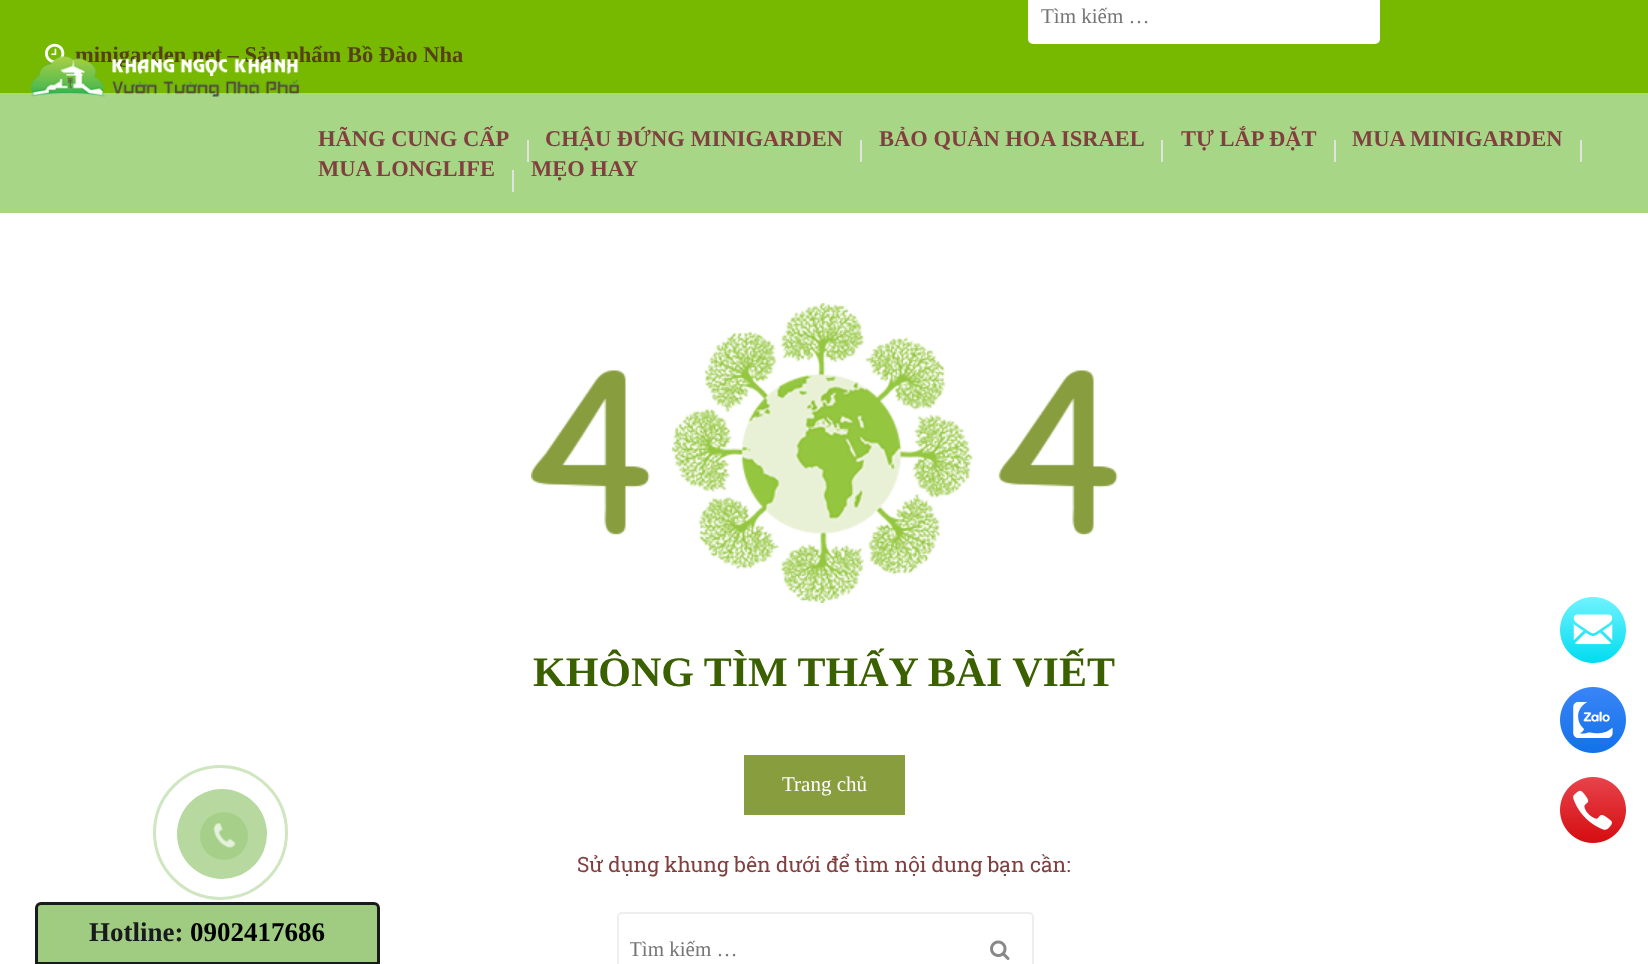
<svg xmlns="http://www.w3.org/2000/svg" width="1648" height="964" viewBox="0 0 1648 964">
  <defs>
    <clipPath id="clip1"><rect x="1041" y="5" width="326" height="24"/></clipPath>
    <clipPath id="clip2"><rect x="630" y="938" width="390" height="24"/></clipPath>
  </defs>
  <rect width="100%" height="100%" fill="#ffffff"/>
  <rect x="0" y="0" width="1648" height="93" fill="#77b800"/>
  <rect x="1028" y="-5" width="352" height="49" rx="5" fill="#ffffff"/>
  <g clip-path="url(#clip1)">
    <text x="1041" y="23" font-family="Liberation Serif" font-size="21" fill="#757575">Tìm kiếm …</text>
  </g>
  <image x="45" y="43" width="20" height="20" href="img1.png"/>
  <text x="75" y="62" font-family="Liberation Serif" font-size="22.5" font-weight="bold" fill="#544117">minigarden.net – Sản phẩm Bồ Đào Nha</text>
  <rect x="0" y="93" width="1648" height="120" fill="#a7d686"/>
  <image x="31" y="56" width="269" height="41" href="img2.png"/>
  <text x="318" y="146" font-family="Liberation Serif" font-size="22.5" font-weight="bold" fill="#804040">HÃNG CUNG CẤP</text>
  <rect x="527" y="140" width="2" height="22" fill="#e2e2e1"/>
  <text x="545" y="146" font-family="Liberation Serif" font-size="22.5" font-weight="bold" fill="#804040">CHẬU ĐỨNG MINIGARDEN</text>
  <rect x="860" y="140" width="2" height="22" fill="#e2e2e1"/>
  <text x="879" y="146" font-family="Liberation Serif" font-size="22.5" font-weight="bold" fill="#804040">BẢO QUẢN HOA ISRAEL</text>
  <rect x="1161" y="140" width="2" height="22" fill="#e2e2e1"/>
  <text x="1181" y="146" font-family="Liberation Serif" font-size="22.5" font-weight="bold" fill="#804040">TỰ LẮP ĐẶT</text>
  <rect x="1334" y="140" width="2" height="22" fill="#e2e2e1"/>
  <text x="1352" y="146" font-family="Liberation Serif" font-size="22.5" font-weight="bold" fill="#804040">MUA MINIGARDEN</text>
  <rect x="1580" y="140" width="2" height="22" fill="#e2e2e1"/>
  <text x="318" y="176" font-family="Liberation Serif" font-size="22.5" font-weight="bold" fill="#804040">MUA LONGLIFE</text>
  <rect x="512" y="170" width="2" height="22" fill="#e2e2e1"/>
  <text x="531" y="176" font-family="Liberation Serif" font-size="22.5" font-weight="bold" fill="#804040">MẸO HAY</text>
  <path d="M41 903.5H374C376.5 903.5 378.5 905.5 378.5 908V963.5H36.5V908C36.5 905.5 38.5 903.5 41 903.5Z" fill="#9fcc80" stroke="#181a1c" stroke-width="3"/>
  <text x="89" y="941" font-family="Liberation Serif" font-size="27" font-weight="bold" fill="#181a1c">Hotline:</text>
  <text x="190" y="941" font-family="Liberation Serif" font-size="27" font-weight="bold" fill="#000000">0902417686</text>
  <image x="531" y="303" width="587" height="300" href="img3.png"/>
  <text x="533" y="686" font-family="Liberation Serif" font-size="42" font-weight="bold" fill="#3b6000">KHÔNG TÌM THẤY BÀI VIẾT</text>
  <rect x="744" y="755" width="161" height="60" fill="#879d3e"/>
  <text x="782" y="791" font-family="Liberation Serif" font-size="21" fill="#ffffff">Trang chủ</text>
  <text x="577" y="872" font-family="Roboto Slab" font-size="21" fill="#804040">Sử dụng khung bên dưới để tìm nội dung bạn cần:</text>
  <rect x="618" y="913" width="415" height="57" rx="4" fill="none" stroke="#eeeeee" stroke-width="2"/>
  <g clip-path="url(#clip2)">
    <text x="629" y="956" font-family="Liberation Serif" font-size="21" fill="#757575">Tìm kiếm …</text>
  </g>
  <image x="990" y="940" width="20" height="20" href="img4.png"/>
  <image x="1560" y="597" width="66" height="66" href="img5.png"/>
  <image x="1560" y="687" width="66" height="66" href="img6.png"/>
  <image x="1560" y="777" width="66" height="66" href="img7.png"/>
  <circle cx="220.5" cy="832.5" r="66" fill="none" stroke="#cfe6c0" stroke-width="3"/>
  <circle cx="222" cy="834" r="45" fill="#b7d9a0"/>
  <circle cx="224" cy="836" r="24" fill="#a6d08a"/>
  <image x="213" y="822" width="23" height="26" href="img8.png"/>
</svg>
